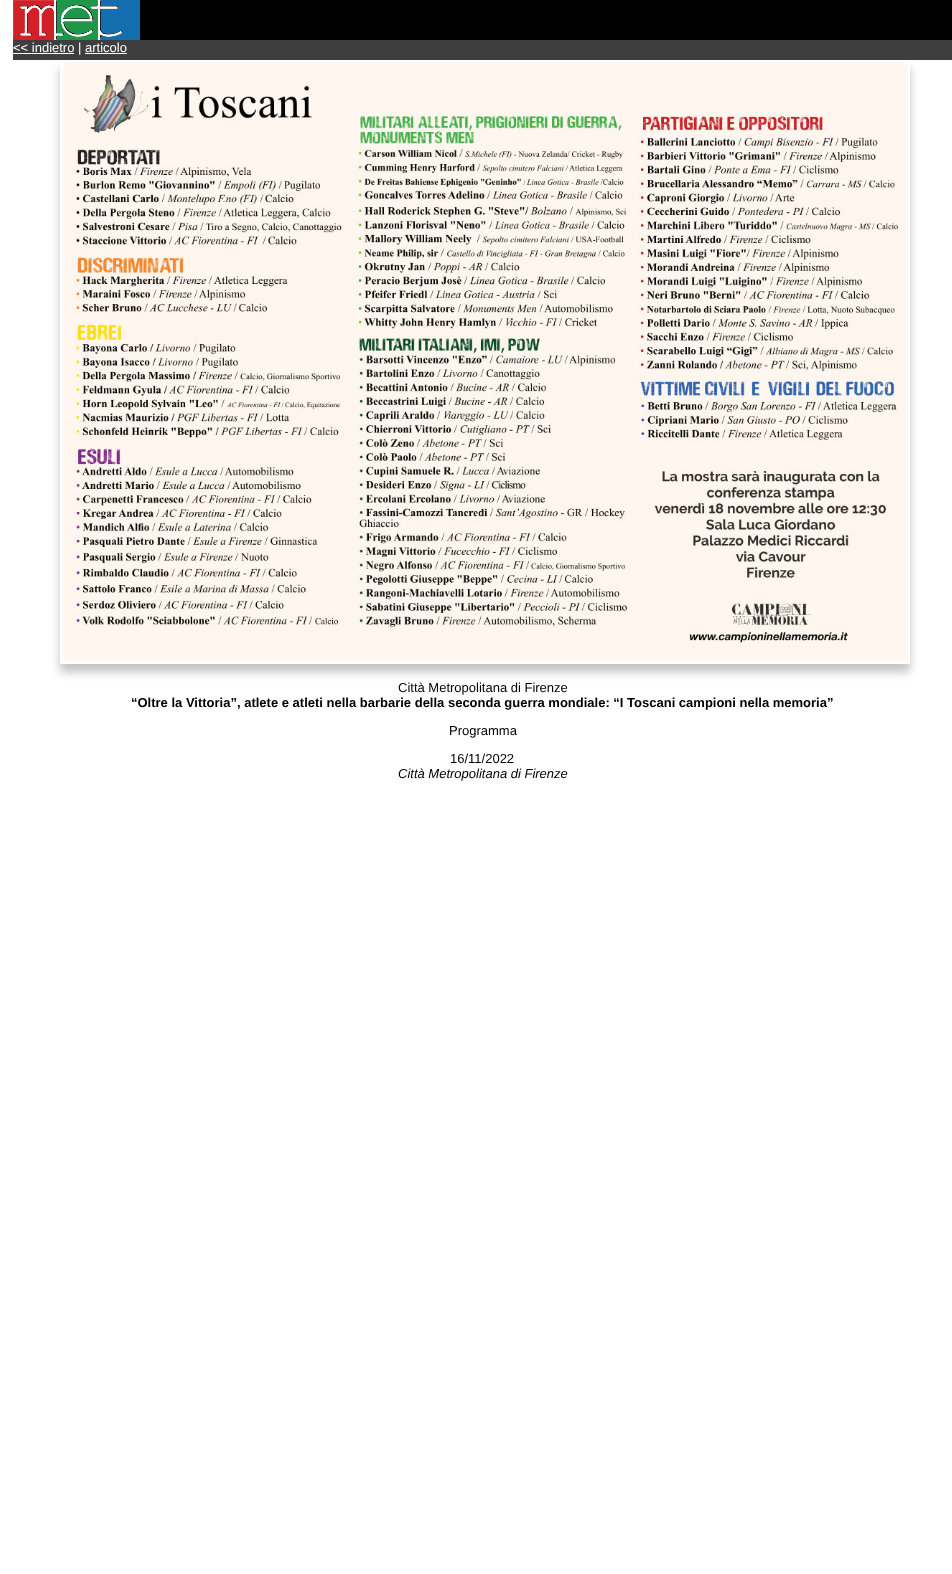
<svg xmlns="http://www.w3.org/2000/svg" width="952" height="1574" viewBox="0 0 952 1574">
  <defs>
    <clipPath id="clip1"><path d="M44 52H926V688H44ZM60 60H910V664H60Z" clip-rule="evenodd"/></clipPath>
    <filter id="blur1" x="-50%" y="-200%" width="200%" height="500%"><feGaussianBlur stdDeviation="5"/></filter>
  </defs>
  <rect width="100%" height="100%" fill="#ffffff"/>
  <rect x="140" y="0" width="812" height="40" fill="#000000"/>
  <image x="13" y="0" width="127" height="40" href="img1.png"/>
  <rect x="13" y="40" width="939" height="20" fill="#3f3e3e"/>
  <rect x="13" y="53" width="61" height="1" fill="#ffffff"/>
  <text x="13" y="52" font-family="Liberation Sans" font-size="13" fill="#ffffff">&lt;&lt; indietro | articolo</text>
  <rect x="85" y="53" width="42" height="1" fill="#ffffff"/>
  <g clip-path="url(#clip1)">
    <rect x="60" y="68" width="850" height="604" fill="#000000" fill-opacity="0.24" filter="url(#blur1)"/>
  </g>
  <image x="63" y="63" width="845" height="598" href="img2.png"/>
  <text x="398" y="692" font-family="Liberation Sans" font-size="13" fill="#000000">Città Metropolitana di Firenze</text>
  <text x="131" y="707" font-family="Liberation Sans" font-size="13" font-weight="bold" fill="#000000">“Oltre la Vittoria”, atlete e atleti nella barbarie della seconda guerra mondiale: “I Toscani campioni nella memoria”</text>
  <text x="449" y="735" font-family="Liberation Sans" font-size="13" fill="#000000">Programma</text>
  <text x="450" y="763" font-family="Liberation Sans" font-size="13" fill="#000000">16/11/2022</text>
  <text x="398" y="778" font-family="Liberation Sans" font-size="13" font-style="italic" fill="#000000">Città Metropolitana di Firenze</text>
</svg>
